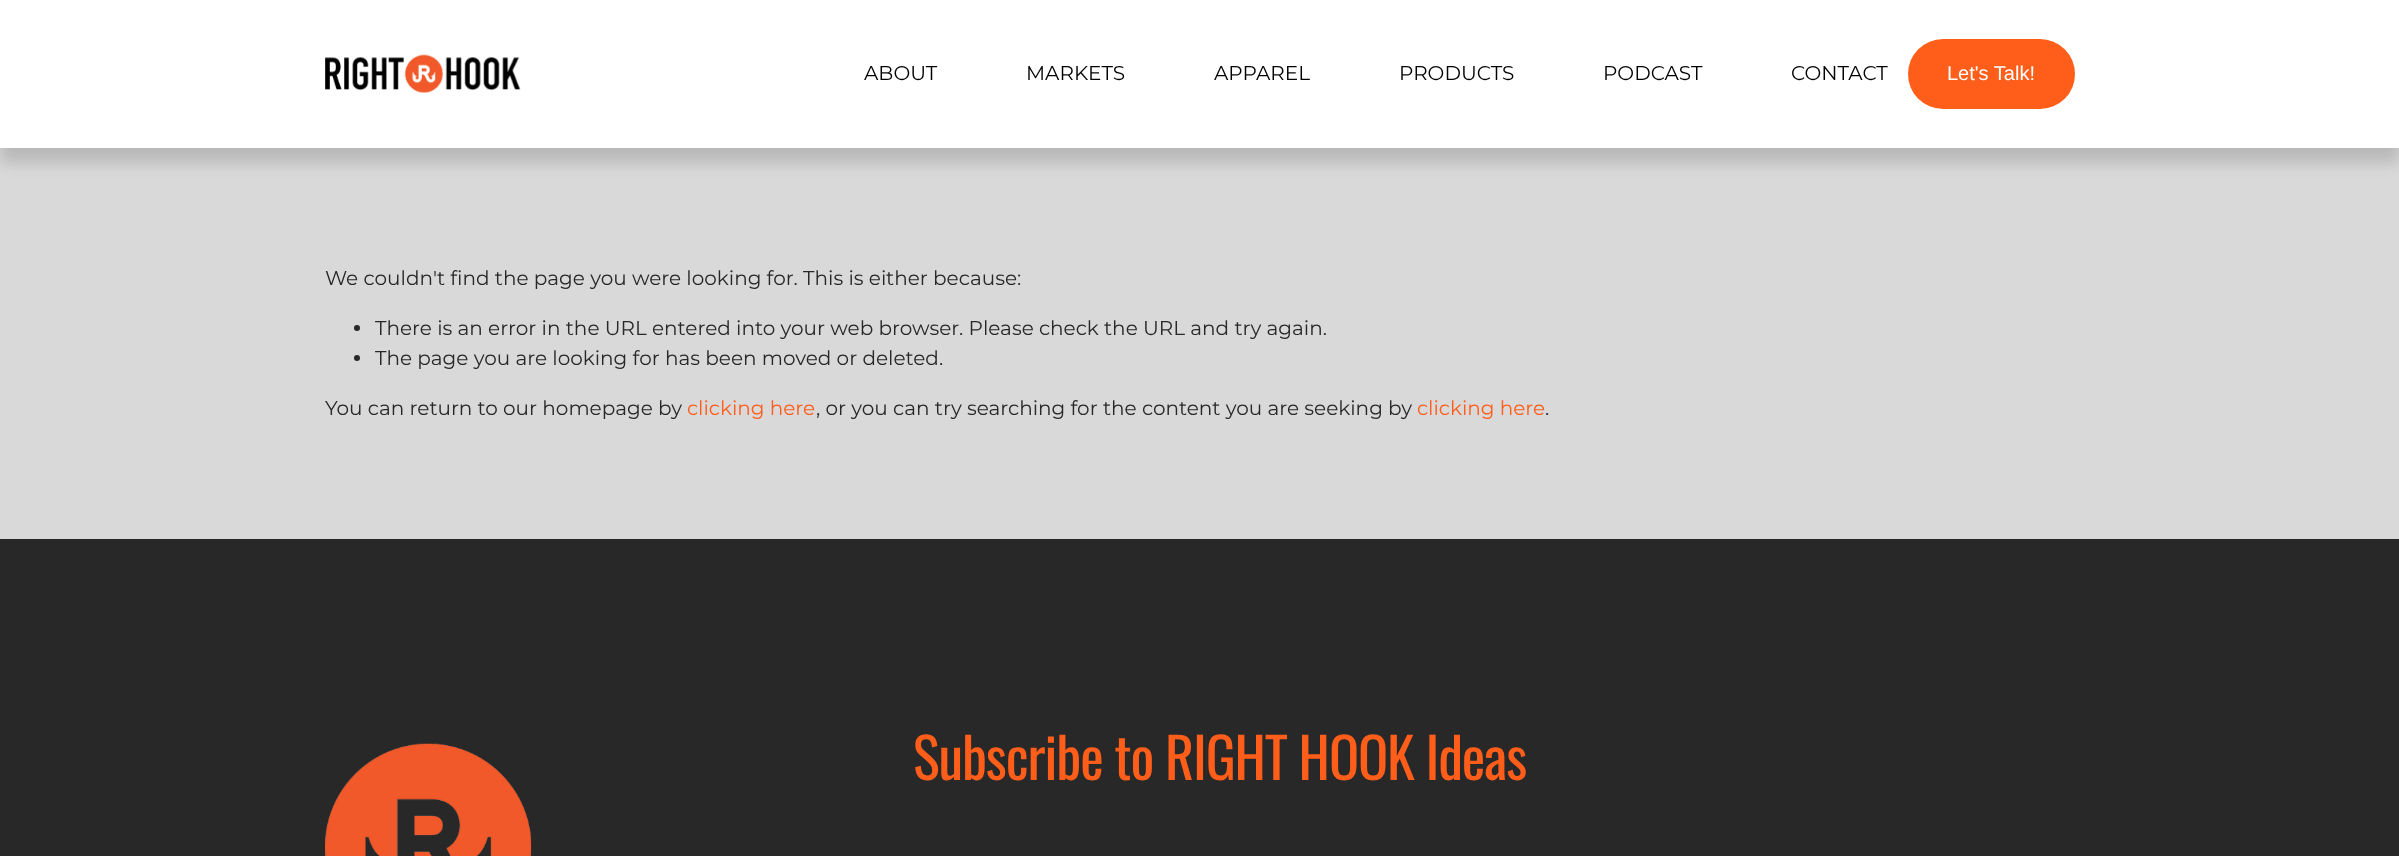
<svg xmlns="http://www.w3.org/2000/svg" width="2399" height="856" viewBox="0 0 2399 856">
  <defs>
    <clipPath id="clip1"><path d="M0 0H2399V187H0ZM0 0H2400V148H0Z" clip-rule="evenodd"/></clipPath>
    <filter id="blur1" x="-50%" y="-200%" width="200%" height="500%"><feGaussianBlur stdDeviation="7.5"/></filter>
  </defs>
  <rect width="100%" height="100%" fill="#dad9d9"/>
  <rect x="0" y="0" width="2399" height="148" fill="#ffffff"/>
  <g clip-path="url(#clip1)">
    <rect x="0" y="15" width="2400" height="148" fill="#000000" fill-opacity="0.15" filter="url(#blur1)"/>
  </g>
  <image x="325" y="54" width="196" height="39" href="img1.png"/>
  <text x="864" y="80" font-family="Montserrat" font-size="20" fill="#000000">ABOUT</text>
  <text x="1026" y="80" font-family="Montserrat" font-size="20" fill="#000000">MARKETS</text>
  <text x="1214" y="80" font-family="Montserrat" font-size="20" fill="#000000">APPAREL</text>
  <text x="1399" y="80" font-family="Montserrat" font-size="20" fill="#000000">PRODUCTS</text>
  <text x="1603" y="80" font-family="Montserrat" font-size="20" fill="#000000">PODCAST</text>
  <text x="1791" y="80" font-family="Montserrat" font-size="20" fill="#000000">CONTACT</text>
  <rect x="1908" y="39" width="167" height="70" rx="35" fill="#ff5e1a"/>
  <text x="1947" y="80" font-family="Arimo" font-size="20" fill="#ffffff">Let's Talk!</text>
  <text x="325" y="285" font-family="Montserrat" font-size="20" fill="#282828">We couldn't find the page you were looking for. This is either because:</text>
  <circle cx="357" cy="328" r="3" fill="#282828"/>
  <text x="375" y="335" font-family="Montserrat" font-size="20" fill="#282828">There is an error in the URL entered into your web browser. Please check the URL and try again.</text>
  <circle cx="357" cy="358" r="3" fill="#282828"/>
  <text x="375" y="365" font-family="Montserrat" font-size="20" fill="#282828">The page you are looking for has been moved or deleted.</text>
  <text x="325" y="415" font-family="Montserrat" font-size="20" fill="#282828">You can return to our homepage by</text>
  <text x="687" y="415" font-family="Montserrat" font-size="20" fill="#ff5e1a">clicking here</text>
  <text x="816" y="415" font-family="Montserrat" font-size="20" fill="#282828">, or you can try searching for the content you are seeking by</text>
  <text x="1417" y="415" font-family="Montserrat" font-size="20" fill="#ff5e1a">clicking here</text>
  <text x="1545" y="415" font-family="Montserrat" font-size="20" fill="#282828">.</text>
  <rect x="0" y="539" width="2399" height="317" fill="#282828"/>
  <image x="325" y="743" width="207" height="113" href="img2.png"/>
  <text x="913" y="780" font-family="Oswald" font-size="56" letter-spacing="-1.1" fill="#ff5e1a">Subscribe to RIGHT HOOK Ideas</text>
</svg>
